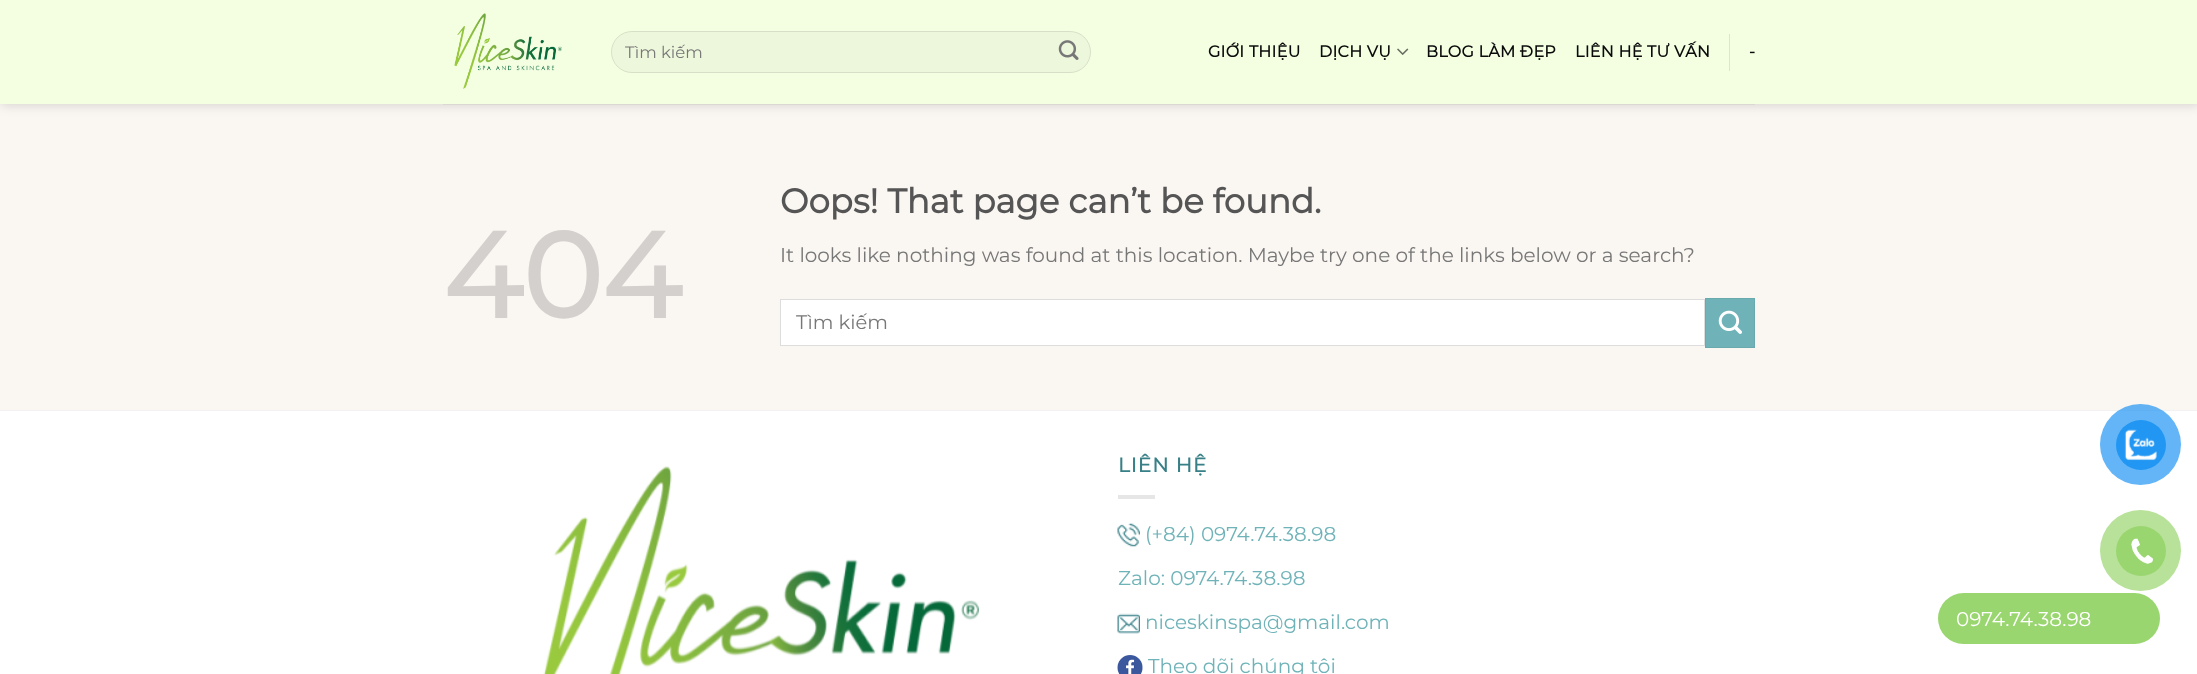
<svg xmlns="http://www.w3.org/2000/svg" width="2197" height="674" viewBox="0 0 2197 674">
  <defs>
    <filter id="blur1" x="-50%" y="-200%" width="200%" height="500%"><feGaussianBlur stdDeviation="6"/></filter>
  </defs>
  <rect width="100%" height="100%" fill="#faf6f2"/>
  <rect x="1" y="1" width="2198" height="104" fill="#000000" fill-opacity="0.15" filter="url(#blur1)"/>
  <rect x="0" y="0" width="2197" height="104" fill="#f4ffe2"/>
  <image x="454" y="13" width="108" height="76" href="img1.png"/>
  <rect x="611" y="31" width="480" height="42" rx="21" fill="#edf7db"/>
  <rect x="611.5" y="31.5" width="479" height="41" rx="20.5" fill="none" stroke="#000000" stroke-opacity="0.09"/>
  <text x="625" y="58" font-family="Montserrat" font-size="16.5" font-weight="100" fill="#777777">Tìm kiếm</text>
  <image x="1058" y="40" width="21" height="20" href="img2.png"/>
  <text x="1208" y="57" font-family="Montserrat" font-size="16" font-weight="bold" letter-spacing="0.25" fill="#0a0a0a">GIỚI THIỆU</text>
  <text x="1319" y="57" font-family="Montserrat" font-size="16" font-weight="bold" letter-spacing="0.25" fill="#0a0a0a">DỊCH VỤ</text>
  <image x="1397" y="48" width="12" height="7" href="img3.png"/>
  <text x="1426" y="57" font-family="Montserrat" font-size="16" font-weight="bold" letter-spacing="0.25" fill="#0a0a0a">BLOG LÀM ĐẸP</text>
  <text x="1575" y="57" font-family="Montserrat" font-size="16" font-weight="bold" letter-spacing="0.25" fill="#0a0a0a">LIÊN HỆ TƯ VẤN</text>
  <rect x="1729" y="34" width="1" height="37" fill="#dce6cb"/>
  <text x="1749" y="57" font-family="Montserrat" font-size="16" font-weight="bold" letter-spacing="0.25" fill="#0a0a0a">-</text>
  <rect x="443" y="104" width="1312" height="1" fill="#dbd8d4"/>
  <text x="443" y="318" font-family="Montserrat" font-size="120" font-weight="bold" fill="#d3d0cd">404</text>
  <text x="780" y="213" font-family="Montserrat" font-size="34" font-weight="bold" fill="#555555">Oops! That page can’t be found.</text>
  <text x="780" y="262" font-family="Montserrat" font-size="20" font-weight="100" fill="#777777">It looks like nothing was found at this location. Maybe try one of the links below or a search?</text>
  <rect x="780.5" y="299.5" width="924" height="46" fill="#ffffff" stroke="#dddddd"/>
  <text x="796" y="329" font-family="Montserrat" font-size="19.5" font-weight="100" fill="#777777">Tìm kiếm</text>
  <rect x="1705.5" y="298.5" width="49" height="49" fill="#6fb3b8" stroke="#69aaaf"/>
  <image x="1718" y="310" width="24" height="24" href="img4.png"/>
  <rect x="0" y="411" width="2197" height="263" fill="#ffffff"/>
  <rect x="0" y="410" width="2197" height="1" fill="#f2f2f2"/>
  <image x="543" y="466" width="436" height="208" href="img5.png"/>
  <text x="1118" y="472" font-family="Montserrat" font-size="20" font-weight="bold" letter-spacing="1" fill="#388087">LIÊN HỆ</text>
  <rect x="1118" y="495" width="37" height="4" fill="#e6e6e6"/>
  <image x="1117" y="523" width="23" height="24" href="img6.png"/>
  <text x="1145" y="541" font-family="Montserrat" font-size="20" font-weight="100" fill="#6fb3b8">(+84) 0974.74.38.98</text>
  <text x="1118" y="585" font-family="Montserrat" font-size="20" font-weight="100" fill="#6fb3b8">Zalo: 0974.74.38.98</text>
  <image x="1117" y="613" width="23" height="21" href="img7.png"/>
  <text x="1145" y="629" font-family="Montserrat" font-size="20" font-weight="100" fill="#6fb3b8">niceskinspa@gmail.com</text>
  <image x="1117" y="655" width="26" height="19" href="img8.png"/>
  <text x="1148" y="673" font-family="Montserrat" font-size="20" font-weight="100" fill="#6fb3b8">Theo dõi chúng tôi</text>
  <circle cx="2140.5" cy="444.5" r="40.5" fill="#2196f3" fill-opacity="0.7"/>
  <circle cx="2141" cy="445" r="25" fill="#2196f3"/>
  <image x="2124" y="429" width="33" height="32" href="img9.png"/>
  <circle cx="2140.5" cy="550.5" r="40.5" fill="#b8e29a"/>
  <circle cx="2141" cy="551" r="25" fill="#9ad66f"/>
  <image x="2131" y="538" width="22" height="26" href="img10.png"/>
  <rect x="1938" y="593" width="222" height="51" rx="25.5" fill="#9ad66f"/>
  <text x="1956" y="626" font-family="Montserrat" font-size="20" font-weight="100" fill="#ffffff">0974.74.38.98</text>
</svg>
